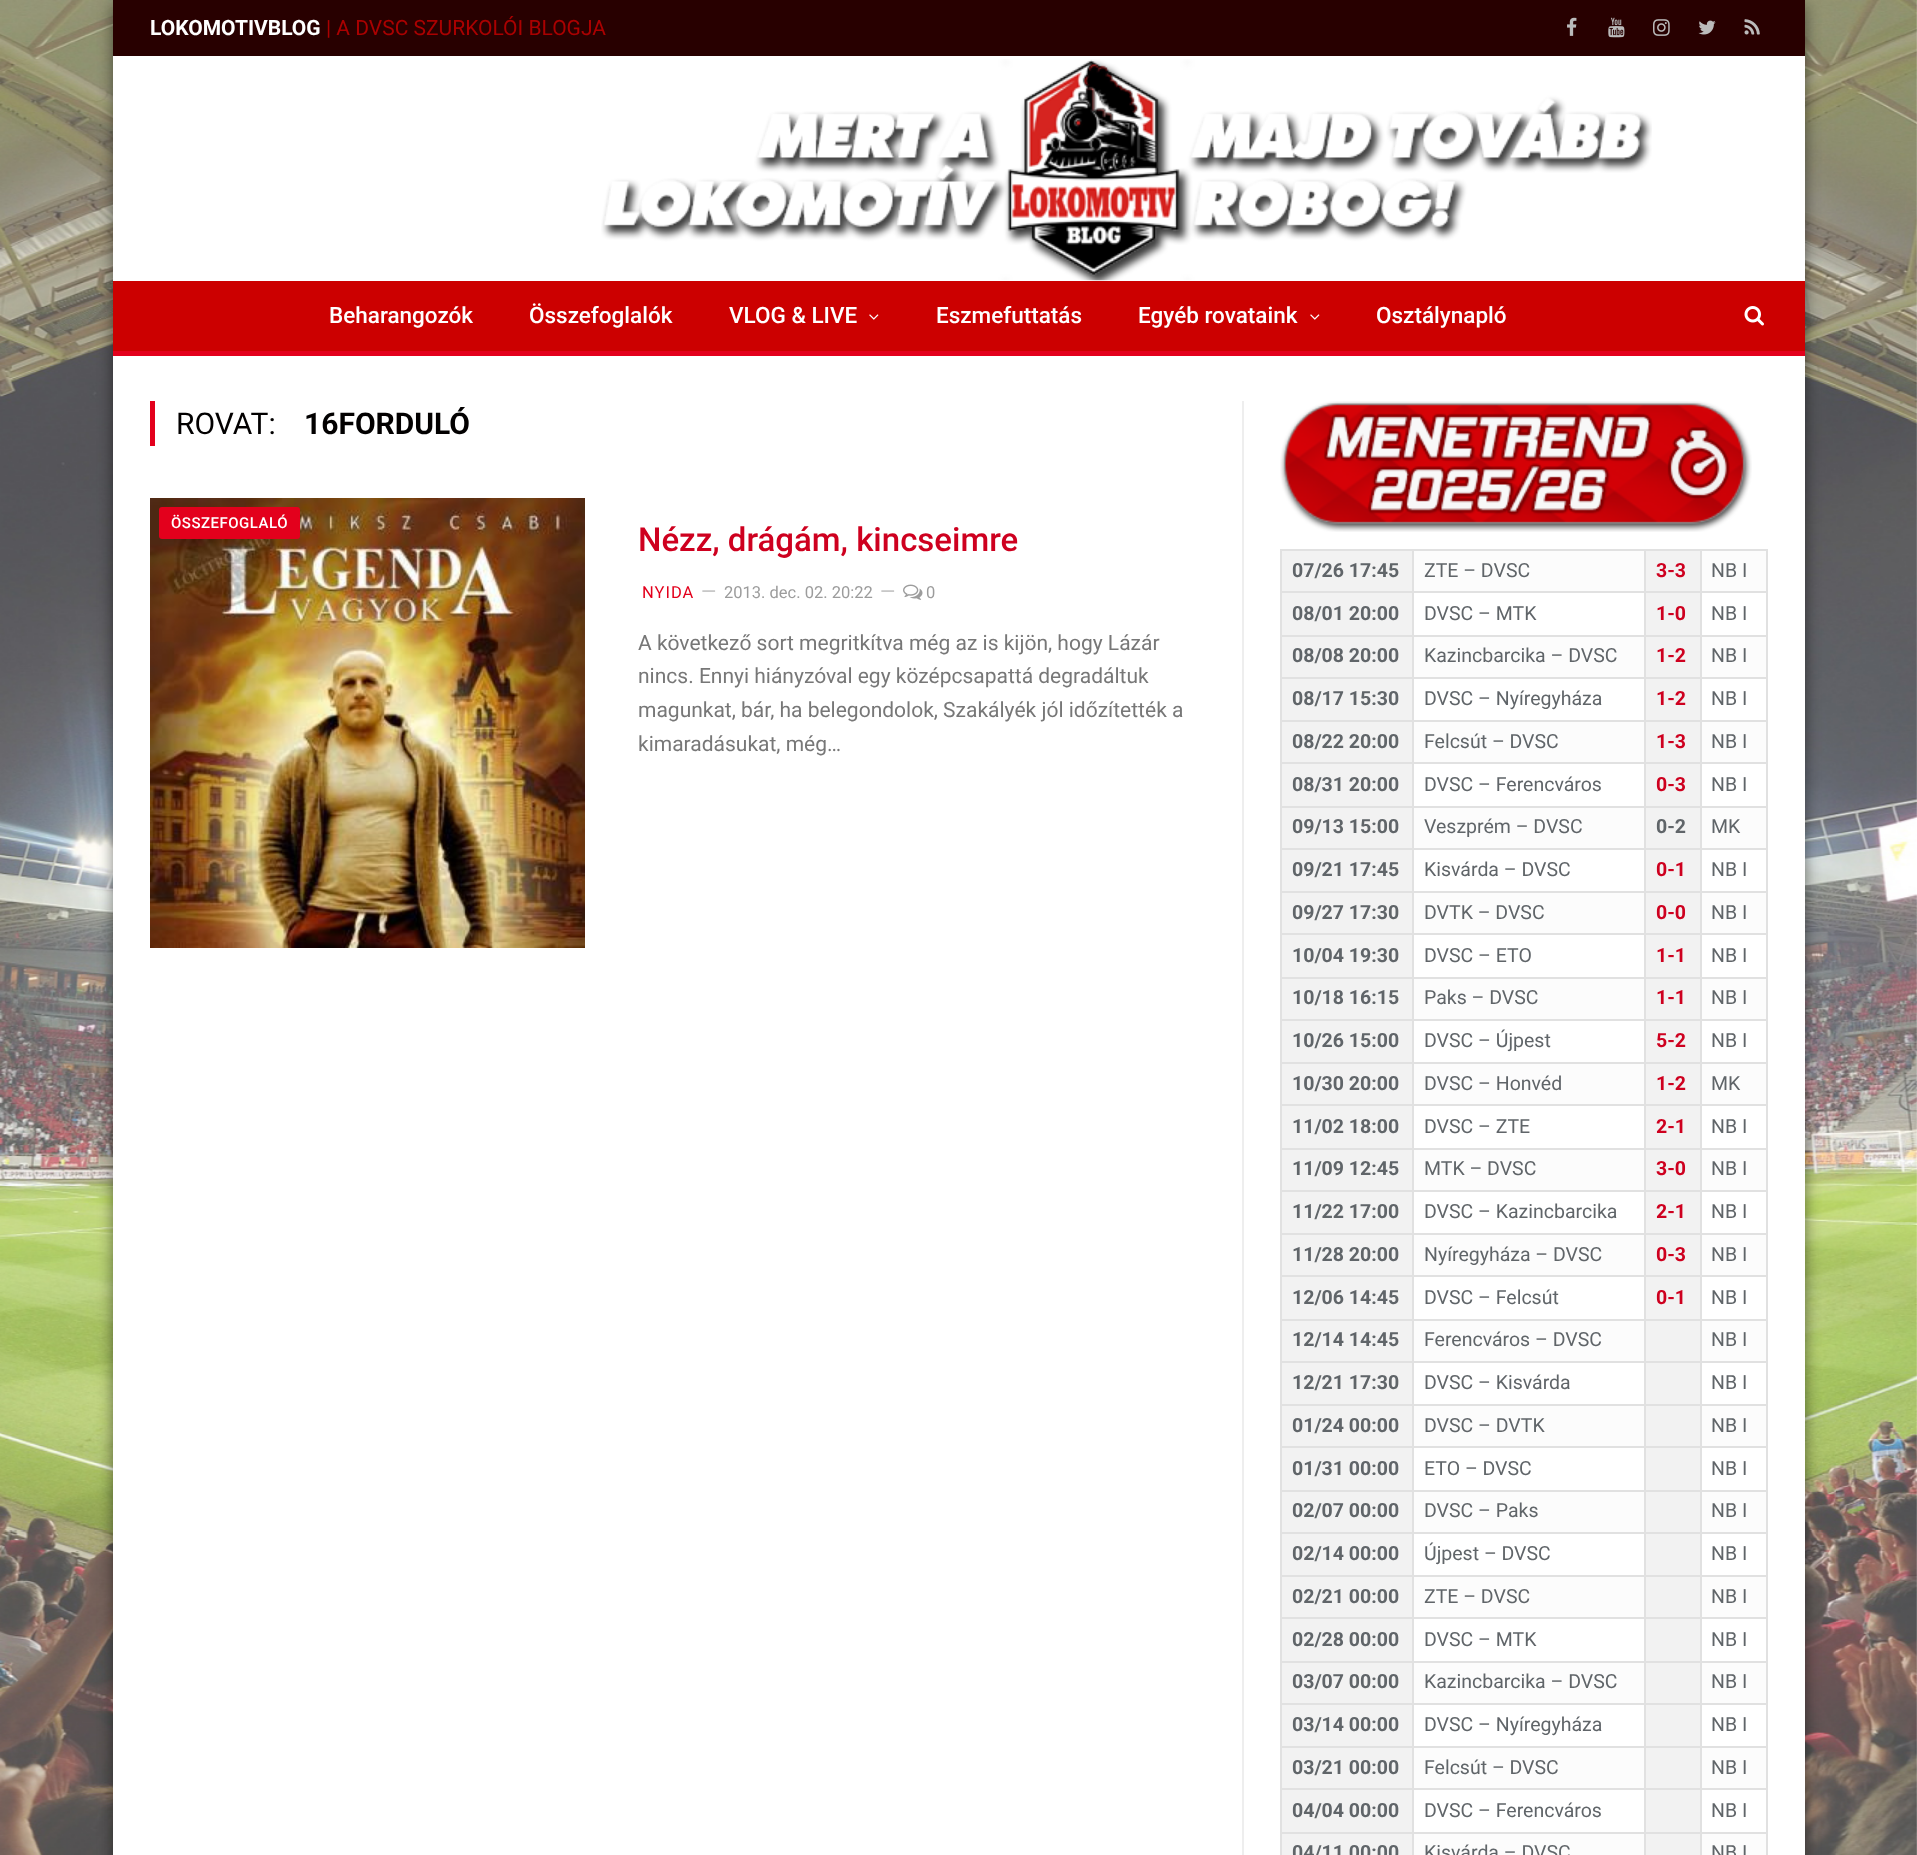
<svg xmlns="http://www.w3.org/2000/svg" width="1917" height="1855">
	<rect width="100%" height="100%" fill="#FFFFFF" />
	<image x="0" y="0" width="1917" height="1855" href="assets/img1.png" />
	<rect x="113" y="5" width="1692" height="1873" fill="#000000" fill-opacity="0.5" filter="blur(7.5px)" />
	<rect x="113" y="56" width="1692" height="1799" fill="#FFFFFF" />
	<rect x="113" y="0" width="1692" height="56" fill="#280000" />
	<text x="150" y="35" font-family="Roboto" font-size="21" font-weight="700" fill="#FFFFFF">LOKOMOTIVBLOG</text>
	<text x="326" y="35" font-family="Roboto" font-size="21" fill="#AA0000">| A DVSC SZURKOLÓI BLOGJA</text>
	<image x="1567" y="17" width="10" height="19" href="assets/img2.png" />
	<image x="1608" y="17" width="17" height="21" href="assets/img3.png" />
	<image x="1653" y="19" width="17" height="17" href="assets/img4.png" />
	<image x="1698" y="20" width="18" height="15" href="assets/img5.png" />
	<image x="1744" y="19" width="16" height="16" href="assets/img6.png" />
	<image x="601" y="59" width="1051" height="222" href="assets/img7.png" />
	<rect x="113" y="281" width="1692" height="70" fill="#CC0000" />
	<rect x="113" y="351" width="1692" height="5" fill="#E3001C" />
	<g font-family="Roboto" font-size="22.5" font-weight="500" fill="#FFFFFF">
		<text x="329" y="323">Beharangozók</text>
		<text x="529" y="323">Összefoglalók</text>
		<text x="729" y="323">VLOG &amp; LIVE</text>
	</g>
	<image x="869" y="314" width="10" height="6" href="assets/img8.png" />
	<g font-family="Roboto" font-size="22.5" font-weight="500" fill="#FFFFFF">
		<text x="936" y="323">Eszmefuttatás</text>
		<text x="1138" y="323">Egyéb rovataink</text>
	</g>
	<image x="1310" y="314" width="10" height="6" href="assets/img8.png" />
	<text x="1376" y="323" font-family="Roboto" font-size="22.5" font-weight="500" fill="#FFFFFF">Osztálynapló</text>
	<image x="1744" y="306" width="20" height="20" href="assets/img9.png" />
	<rect x="150" y="401" width="5" height="45" fill="#E3001C" />
	<text x="176" y="434" font-family="Roboto" font-size="30" fill="#020000">ROVAT:</text>
	<text x="304" y="434" font-family="Roboto" font-size="30" font-weight="700" fill="#020000">16FORDULÓ</text>
	<image x="150" y="498" width="435" height="450" href="assets/img10.png" />
	<rect x="159" y="507" width="141" height="32" rx="3" fill="#E3001C" />
	<text x="171" y="528" font-family="Roboto" font-size="15" font-weight="500" letter-spacing="0.5" fill="#FFFFFF">ÖSSZEFOGLALÓ</text>
	<text x="638" y="551" font-family="Roboto" font-size="33" font-weight="500" fill="#CE001F">Nézz, drágám, kincseimre</text>
	<text x="642" y="598" font-family="Roboto" font-size="16.5" letter-spacing="1" fill="#E3001C">NYIDA</text>
	<text x="701" y="598" font-family="Roboto" font-size="19.5" fill="#BCBCBC">—</text>
	<text x="724" y="598" font-family="Roboto" font-size="16.5" fill="#9C9C9C">2013. dec. 02. 20:22</text>
	<text x="880" y="598" font-family="Roboto" font-size="19.5" fill="#BCBCBC">—</text>
	<image x="903" y="584" width="20" height="16" href="assets/img11.png" />
	<text x="926" y="598" font-family="Roboto" font-size="16.5" fill="#9C9C9C">0</text>
	<g font-family="Roboto" font-size="21" fill="#777777">
		<text x="638" y="650">A következő sort megritkítva még az is kijön, hogy Lázár</text>
		<text x="638" y="683">nincs. Ennyi hiányzóval egy középcsapattá degradáltuk</text>
		<text x="638" y="717">magunkat, bár, ha belegondolok, Szakályék jól időzítették a</text>
		<text x="638" y="751">kimaradásukat, még…</text>
	</g>
	<rect x="1242" y="401" width="2" height="1454" fill="#EEEEEE" />
	<image x="1280" y="401" width="472" height="131" href="assets/img12.png" />
	<rect x="1282" y="551" width="130" height="40" fill="#F2F2F2" />
	<rect x="1700" y="549" width="67" height="2" fill="#E1E1E1" />
	<rect x="1700" y="591" width="67" height="2" fill="#E1E1E1" />
	<rect x="1700" y="635" width="67" height="2" fill="#E1E1E1" />
	<rect x="1700" y="677" width="67" height="2" fill="#E1E1E1" />
	<rect x="1700" y="720" width="67" height="2" fill="#E1E1E1" />
	<rect x="1700" y="762" width="67" height="2" fill="#E1E1E1" />
	<rect x="1700" y="806" width="67" height="2" fill="#E1E1E1" />
	<rect x="1700" y="848" width="67" height="2" fill="#E1E1E1" />
	<rect x="1700" y="891" width="67" height="2" fill="#E1E1E1" />
	<rect x="1700" y="933" width="67" height="2" fill="#E1E1E1" />
	<rect x="1700" y="977" width="67" height="2" fill="#E1E1E1" />
	<rect x="1700" y="1019" width="67" height="2" fill="#E1E1E1" />
	<rect x="1700" y="1062" width="67" height="2" fill="#E1E1E1" />
	<rect x="1700" y="1104" width="67" height="2" fill="#E1E1E1" />
	<rect x="1700" y="1148" width="67" height="2" fill="#E1E1E1" />
	<rect x="1700" y="1190" width="67" height="2" fill="#E1E1E1" />
	<rect x="1700" y="1233" width="67" height="2" fill="#E1E1E1" />
	<rect x="1700" y="1275" width="67" height="2" fill="#E1E1E1" />
	<rect x="1700" y="1319" width="67" height="2" fill="#E1E1E1" />
	<rect x="1700" y="1361" width="67" height="2" fill="#E1E1E1" />
	<rect x="1700" y="1404" width="67" height="2" fill="#E1E1E1" />
	<rect x="1700" y="1446" width="67" height="2" fill="#E1E1E1" />
	<rect x="1700" y="1490" width="67" height="2" fill="#E1E1E1" />
	<rect x="1700" y="1532" width="67" height="2" fill="#E1E1E1" />
	<rect x="1700" y="1575" width="67" height="2" fill="#E1E1E1" />
	<rect x="1700" y="1617" width="67" height="2" fill="#E1E1E1" />
	<rect x="1700" y="1661" width="67" height="2" fill="#E1E1E1" />
	<rect x="1700" y="1703" width="67" height="2" fill="#E1E1E1" />
	<rect x="1700" y="1746" width="67" height="2" fill="#E1E1E1" />
	<rect x="1700" y="1788" width="67" height="2" fill="#E1E1E1" />
	<rect x="1700" y="1832" width="67" height="2" fill="#E1E1E1" />
	<rect x="1700" y="1832" width="2" height="23" fill="#E1E1E1" />
	<rect x="1644" y="1832" width="57" height="2" fill="#E1E1E1" />
	<rect x="1700" y="1788" width="2" height="45" fill="#E1E1E1" />
	<rect x="1644" y="1788" width="57" height="2" fill="#E1E1E1" />
	<rect x="1700" y="1746" width="2" height="44" fill="#E1E1E1" />
	<rect x="1644" y="1746" width="57" height="2" fill="#E1E1E1" />
	<rect x="1700" y="1703" width="2" height="45" fill="#E1E1E1" />
	<rect x="1644" y="1703" width="57" height="2" fill="#E1E1E1" />
	<rect x="1700" y="1661" width="2" height="43" fill="#E1E1E1" />
	<rect x="1644" y="1661" width="57" height="2" fill="#E1E1E1" />
	<rect x="1700" y="1617" width="2" height="45" fill="#E1E1E1" />
	<rect x="1644" y="1617" width="57" height="2" fill="#E1E1E1" />
	<rect x="1700" y="1575" width="2" height="44" fill="#E1E1E1" />
	<rect x="1644" y="1575" width="57" height="2" fill="#E1E1E1" />
	<rect x="1700" y="1532" width="2" height="45" fill="#E1E1E1" />
	<rect x="1644" y="1532" width="57" height="2" fill="#E1E1E1" />
	<rect x="1700" y="1490" width="2" height="43" fill="#E1E1E1" />
	<rect x="1644" y="1490" width="57" height="2" fill="#E1E1E1" />
	<rect x="1700" y="1446" width="2" height="45" fill="#E1E1E1" />
	<rect x="1644" y="1446" width="57" height="2" fill="#E1E1E1" />
	<rect x="1700" y="1404" width="2" height="44" fill="#E1E1E1" />
	<rect x="1644" y="1404" width="57" height="2" fill="#E1E1E1" />
	<rect x="1700" y="1361" width="2" height="45" fill="#E1E1E1" />
	<rect x="1644" y="1361" width="57" height="2" fill="#E1E1E1" />
	<rect x="1700" y="1319" width="2" height="43" fill="#E1E1E1" />
	<rect x="1644" y="1319" width="57" height="2" fill="#E1E1E1" />
	<rect x="1700" y="1275" width="2" height="45" fill="#E1E1E1" />
	<rect x="1644" y="1275" width="57" height="2" fill="#E1E1E1" />
	<rect x="1700" y="1233" width="2" height="44" fill="#E1E1E1" />
	<rect x="1644" y="1233" width="57" height="2" fill="#E1E1E1" />
	<rect x="1700" y="1190" width="2" height="45" fill="#E1E1E1" />
	<rect x="1644" y="1190" width="57" height="2" fill="#E1E1E1" />
	<rect x="1700" y="1148" width="2" height="43" fill="#E1E1E1" />
	<rect x="1644" y="1148" width="57" height="2" fill="#E1E1E1" />
	<rect x="1700" y="1104" width="2" height="45" fill="#E1E1E1" />
	<rect x="1644" y="1104" width="57" height="2" fill="#E1E1E1" />
	<rect x="1700" y="1062" width="2" height="44" fill="#E1E1E1" />
	<rect x="1644" y="1062" width="57" height="2" fill="#E1E1E1" />
	<rect x="1700" y="1019" width="2" height="45" fill="#E1E1E1" />
	<rect x="1644" y="1019" width="57" height="2" fill="#E1E1E1" />
	<rect x="1700" y="977" width="2" height="43" fill="#E1E1E1" />
	<rect x="1644" y="977" width="57" height="2" fill="#E1E1E1" />
	<rect x="1700" y="933" width="2" height="45" fill="#E1E1E1" />
	<rect x="1644" y="933" width="57" height="2" fill="#E1E1E1" />
	<rect x="1700" y="891" width="2" height="44" fill="#E1E1E1" />
	<rect x="1644" y="891" width="57" height="2" fill="#E1E1E1" />
	<rect x="1700" y="848" width="2" height="45" fill="#E1E1E1" />
	<rect x="1644" y="848" width="57" height="2" fill="#E1E1E1" />
	<rect x="1700" y="806" width="2" height="43" fill="#E1E1E1" />
	<rect x="1644" y="806" width="57" height="2" fill="#E1E1E1" />
	<rect x="1700" y="762" width="2" height="45" fill="#E1E1E1" />
	<rect x="1644" y="762" width="57" height="2" fill="#E1E1E1" />
	<rect x="1700" y="720" width="2" height="44" fill="#E1E1E1" />
	<rect x="1644" y="720" width="57" height="2" fill="#E1E1E1" />
	<rect x="1700" y="677" width="2" height="45" fill="#E1E1E1" />
	<rect x="1644" y="677" width="57" height="2" fill="#E1E1E1" />
	<rect x="1700" y="635" width="2" height="43" fill="#E1E1E1" />
	<rect x="1644" y="635" width="57" height="2" fill="#E1E1E1" />
	<rect x="1700" y="591" width="2" height="45" fill="#E1E1E1" />
	<rect x="1644" y="591" width="57" height="2" fill="#E1E1E1" />
	<rect x="1700" y="549" width="2" height="44" fill="#E1E1E1" />
	<rect x="1644" y="549" width="57" height="2" fill="#E1E1E1" />
	<rect x="1644" y="1832" width="2" height="23" fill="#E1E1E1" />
	<rect x="1412" y="1832" width="234" height="2" fill="#E1E1E1" />
	<rect x="1644" y="1788" width="2" height="45" fill="#E1E1E1" />
	<rect x="1412" y="1788" width="234" height="2" fill="#E1E1E1" />
	<rect x="1644" y="1746" width="2" height="44" fill="#E1E1E1" />
	<rect x="1412" y="1746" width="234" height="2" fill="#E1E1E1" />
	<rect x="1644" y="1703" width="2" height="45" fill="#E1E1E1" />
	<rect x="1412" y="1703" width="234" height="2" fill="#E1E1E1" />
	<rect x="1644" y="1661" width="2" height="43" fill="#E1E1E1" />
	<rect x="1412" y="1661" width="234" height="2" fill="#E1E1E1" />
	<rect x="1644" y="1617" width="2" height="45" fill="#E1E1E1" />
	<rect x="1412" y="1617" width="234" height="2" fill="#E1E1E1" />
	<rect x="1644" y="1575" width="2" height="44" fill="#E1E1E1" />
	<rect x="1412" y="1575" width="234" height="2" fill="#E1E1E1" />
	<rect x="1644" y="1532" width="2" height="45" fill="#E1E1E1" />
	<rect x="1412" y="1532" width="234" height="2" fill="#E1E1E1" />
	<rect x="1644" y="1490" width="2" height="43" fill="#E1E1E1" />
	<rect x="1412" y="1490" width="234" height="2" fill="#E1E1E1" />
	<rect x="1644" y="1446" width="2" height="45" fill="#E1E1E1" />
	<rect x="1412" y="1446" width="234" height="2" fill="#E1E1E1" />
	<rect x="1644" y="1404" width="2" height="44" fill="#E1E1E1" />
	<rect x="1412" y="1404" width="234" height="2" fill="#E1E1E1" />
	<rect x="1644" y="1361" width="2" height="45" fill="#E1E1E1" />
	<rect x="1412" y="1361" width="234" height="2" fill="#E1E1E1" />
	<rect x="1644" y="1319" width="2" height="43" fill="#E1E1E1" />
	<rect x="1412" y="1319" width="234" height="2" fill="#E1E1E1" />
	<rect x="1644" y="1275" width="2" height="45" fill="#E1E1E1" />
	<rect x="1412" y="1275" width="234" height="2" fill="#E1E1E1" />
	<rect x="1644" y="1233" width="2" height="44" fill="#E1E1E1" />
	<rect x="1412" y="1233" width="234" height="2" fill="#E1E1E1" />
	<rect x="1644" y="1190" width="2" height="45" fill="#E1E1E1" />
	<rect x="1412" y="1190" width="234" height="2" fill="#E1E1E1" />
	<rect x="1644" y="1148" width="2" height="43" fill="#E1E1E1" />
	<rect x="1412" y="1148" width="234" height="2" fill="#E1E1E1" />
	<rect x="1644" y="1104" width="2" height="45" fill="#E1E1E1" />
	<rect x="1412" y="1104" width="234" height="2" fill="#E1E1E1" />
	<rect x="1644" y="1062" width="2" height="44" fill="#E1E1E1" />
	<rect x="1412" y="1062" width="234" height="2" fill="#E1E1E1" />
	<rect x="1644" y="1019" width="2" height="45" fill="#E1E1E1" />
	<rect x="1412" y="1019" width="234" height="2" fill="#E1E1E1" />
	<rect x="1644" y="977" width="2" height="43" fill="#E1E1E1" />
	<rect x="1412" y="977" width="234" height="2" fill="#E1E1E1" />
	<rect x="1644" y="933" width="2" height="45" fill="#E1E1E1" />
	<rect x="1412" y="933" width="234" height="2" fill="#E1E1E1" />
	<rect x="1644" y="891" width="2" height="44" fill="#E1E1E1" />
	<rect x="1412" y="891" width="234" height="2" fill="#E1E1E1" />
	<rect x="1644" y="848" width="2" height="45" fill="#E1E1E1" />
	<rect x="1412" y="848" width="234" height="2" fill="#E1E1E1" />
	<rect x="1644" y="806" width="2" height="43" fill="#E1E1E1" />
	<rect x="1412" y="806" width="234" height="2" fill="#E1E1E1" />
	<rect x="1644" y="762" width="2" height="45" fill="#E1E1E1" />
	<rect x="1412" y="762" width="234" height="2" fill="#E1E1E1" />
	<rect x="1644" y="720" width="2" height="44" fill="#E1E1E1" />
	<rect x="1412" y="720" width="234" height="2" fill="#E1E1E1" />
	<rect x="1644" y="677" width="2" height="45" fill="#E1E1E1" />
	<rect x="1412" y="677" width="234" height="2" fill="#E1E1E1" />
	<rect x="1644" y="635" width="2" height="43" fill="#E1E1E1" />
	<rect x="1412" y="635" width="234" height="2" fill="#E1E1E1" />
	<rect x="1644" y="591" width="2" height="45" fill="#E1E1E1" />
	<rect x="1412" y="591" width="234" height="2" fill="#E1E1E1" />
	<rect x="1644" y="549" width="2" height="44" fill="#E1E1E1" />
	<rect x="1412" y="549" width="234" height="2" fill="#E1E1E1" />
	<rect x="1412" y="1832" width="2" height="23" fill="#E1E1E1" />
	<rect x="1280" y="1832" width="133" height="2" fill="#E1E1E1" />
	<rect x="1412" y="1788" width="2" height="45" fill="#E1E1E1" />
	<rect x="1280" y="1788" width="133" height="2" fill="#E1E1E1" />
	<rect x="1412" y="1746" width="2" height="44" fill="#E1E1E1" />
	<rect x="1280" y="1746" width="133" height="2" fill="#E1E1E1" />
	<rect x="1412" y="1703" width="2" height="45" fill="#E1E1E1" />
	<rect x="1280" y="1703" width="133" height="2" fill="#E1E1E1" />
	<rect x="1412" y="1661" width="2" height="43" fill="#E1E1E1" />
	<rect x="1280" y="1661" width="133" height="2" fill="#E1E1E1" />
	<rect x="1412" y="1617" width="2" height="45" fill="#E1E1E1" />
	<rect x="1280" y="1617" width="133" height="2" fill="#E1E1E1" />
	<rect x="1412" y="1575" width="2" height="44" fill="#E1E1E1" />
	<rect x="1280" y="1575" width="133" height="2" fill="#E1E1E1" />
	<rect x="1412" y="1532" width="2" height="45" fill="#E1E1E1" />
	<rect x="1280" y="1532" width="133" height="2" fill="#E1E1E1" />
	<rect x="1412" y="1490" width="2" height="43" fill="#E1E1E1" />
	<rect x="1280" y="1490" width="133" height="2" fill="#E1E1E1" />
	<rect x="1412" y="1446" width="2" height="45" fill="#E1E1E1" />
	<rect x="1280" y="1446" width="133" height="2" fill="#E1E1E1" />
	<rect x="1412" y="1404" width="2" height="44" fill="#E1E1E1" />
	<rect x="1280" y="1404" width="133" height="2" fill="#E1E1E1" />
	<rect x="1412" y="1361" width="2" height="45" fill="#E1E1E1" />
	<rect x="1280" y="1361" width="133" height="2" fill="#E1E1E1" />
	<rect x="1412" y="1319" width="2" height="43" fill="#E1E1E1" />
	<rect x="1280" y="1319" width="133" height="2" fill="#E1E1E1" />
	<rect x="1412" y="1275" width="2" height="45" fill="#E1E1E1" />
	<rect x="1280" y="1275" width="133" height="2" fill="#E1E1E1" />
	<rect x="1412" y="1233" width="2" height="44" fill="#E1E1E1" />
	<rect x="1280" y="1233" width="133" height="2" fill="#E1E1E1" />
	<rect x="1412" y="1190" width="2" height="45" fill="#E1E1E1" />
	<rect x="1280" y="1190" width="133" height="2" fill="#E1E1E1" />
	<rect x="1412" y="1148" width="2" height="43" fill="#E1E1E1" />
	<rect x="1280" y="1148" width="133" height="2" fill="#E1E1E1" />
	<rect x="1412" y="1104" width="2" height="45" fill="#E1E1E1" />
	<rect x="1280" y="1104" width="133" height="2" fill="#E1E1E1" />
	<rect x="1412" y="1062" width="2" height="44" fill="#E1E1E1" />
	<rect x="1280" y="1062" width="133" height="2" fill="#E1E1E1" />
	<rect x="1412" y="1019" width="2" height="45" fill="#E1E1E1" />
	<rect x="1280" y="1019" width="133" height="2" fill="#E1E1E1" />
	<rect x="1412" y="977" width="2" height="43" fill="#E1E1E1" />
	<rect x="1280" y="977" width="133" height="2" fill="#E1E1E1" />
	<rect x="1412" y="933" width="2" height="45" fill="#E1E1E1" />
	<rect x="1280" y="933" width="133" height="2" fill="#E1E1E1" />
	<rect x="1412" y="891" width="2" height="44" fill="#E1E1E1" />
	<rect x="1280" y="891" width="133" height="2" fill="#E1E1E1" />
	<rect x="1412" y="848" width="2" height="45" fill="#E1E1E1" />
	<rect x="1280" y="848" width="133" height="2" fill="#E1E1E1" />
	<rect x="1412" y="806" width="2" height="43" fill="#E1E1E1" />
	<rect x="1280" y="806" width="133" height="2" fill="#E1E1E1" />
	<rect x="1412" y="762" width="2" height="45" fill="#E1E1E1" />
	<rect x="1280" y="762" width="133" height="2" fill="#E1E1E1" />
	<rect x="1412" y="720" width="2" height="44" fill="#E1E1E1" />
	<rect x="1280" y="720" width="133" height="2" fill="#E1E1E1" />
	<rect x="1412" y="677" width="2" height="45" fill="#E1E1E1" />
	<rect x="1280" y="677" width="133" height="2" fill="#E1E1E1" />
	<rect x="1412" y="635" width="2" height="43" fill="#E1E1E1" />
	<rect x="1280" y="635" width="133" height="2" fill="#E1E1E1" />
	<rect x="1412" y="591" width="2" height="45" fill="#E1E1E1" />
	<rect x="1280" y="591" width="133" height="2" fill="#E1E1E1" />
	<rect x="1412" y="549" width="2" height="44" fill="#E1E1E1" />
	<rect x="1280" y="549" width="133" height="2" fill="#E1E1E1" />
	<rect x="1280" y="1832" width="2" height="23" fill="#E1E1E1" />
	<rect x="1280" y="1788" width="2" height="45" fill="#E1E1E1" />
	<rect x="1280" y="1746" width="2" height="44" fill="#E1E1E1" />
	<rect x="1280" y="1703" width="2" height="45" fill="#E1E1E1" />
	<rect x="1280" y="1661" width="2" height="43" fill="#E1E1E1" />
	<rect x="1280" y="1617" width="2" height="45" fill="#E1E1E1" />
	<rect x="1280" y="1575" width="2" height="44" fill="#E1E1E1" />
	<rect x="1280" y="1532" width="2" height="45" fill="#E1E1E1" />
	<rect x="1280" y="1490" width="2" height="43" fill="#E1E1E1" />
	<rect x="1280" y="1446" width="2" height="45" fill="#E1E1E1" />
	<rect x="1280" y="1404" width="2" height="44" fill="#E1E1E1" />
	<rect x="1280" y="1361" width="2" height="45" fill="#E1E1E1" />
	<rect x="1280" y="1319" width="2" height="43" fill="#E1E1E1" />
	<rect x="1280" y="1275" width="2" height="45" fill="#E1E1E1" />
	<rect x="1280" y="1233" width="2" height="44" fill="#E1E1E1" />
	<rect x="1280" y="1190" width="2" height="45" fill="#E1E1E1" />
	<rect x="1280" y="1148" width="2" height="43" fill="#E1E1E1" />
	<rect x="1280" y="1104" width="2" height="45" fill="#E1E1E1" />
	<rect x="1280" y="1062" width="2" height="44" fill="#E1E1E1" />
	<rect x="1280" y="1019" width="2" height="45" fill="#E1E1E1" />
	<rect x="1280" y="977" width="2" height="43" fill="#E1E1E1" />
	<rect x="1280" y="933" width="2" height="45" fill="#E1E1E1" />
	<rect x="1280" y="891" width="2" height="44" fill="#E1E1E1" />
	<rect x="1280" y="848" width="2" height="45" fill="#E1E1E1" />
	<rect x="1280" y="806" width="2" height="43" fill="#E1E1E1" />
	<rect x="1280" y="762" width="2" height="45" fill="#E1E1E1" />
	<rect x="1280" y="720" width="2" height="44" fill="#E1E1E1" />
	<rect x="1280" y="677" width="2" height="45" fill="#E1E1E1" />
	<rect x="1280" y="635" width="2" height="43" fill="#E1E1E1" />
	<rect x="1280" y="591" width="2" height="45" fill="#E1E1E1" />
	<rect x="1280" y="549" width="2" height="44" fill="#E1E1E1" />
	<text x="1292" y="577" font-family="Roboto" font-size="19.5" font-weight="700" fill="#606569">07/26 17:45</text>
	<rect x="1414" y="551" width="230" height="40" fill="#FCFCFC" />
	<text x="1424" y="577" font-family="Roboto" font-size="19.5" fill="#606569">ZTE – DVSC</text>
	<rect x="1646" y="551" width="54" height="40" fill="#F2F2F2" />
	<text x="1656" y="577" font-family="Roboto" font-size="19.5" font-weight="700" fill="#CE001F">3-3</text>
	<rect x="1702" y="551" width="64" height="40" fill="#FCFCFC" />
	<rect x="1766" y="1832" width="2" height="23" fill="#E1E1E1" />
	<rect x="1766" y="1788" width="2" height="45" fill="#E1E1E1" />
	<rect x="1766" y="1746" width="2" height="44" fill="#E1E1E1" />
	<rect x="1766" y="1703" width="2" height="45" fill="#E1E1E1" />
	<rect x="1766" y="1661" width="2" height="43" fill="#E1E1E1" />
	<rect x="1766" y="1617" width="2" height="45" fill="#E1E1E1" />
	<rect x="1766" y="1575" width="2" height="44" fill="#E1E1E1" />
	<rect x="1766" y="1532" width="2" height="45" fill="#E1E1E1" />
	<rect x="1766" y="1490" width="2" height="43" fill="#E1E1E1" />
	<rect x="1766" y="1446" width="2" height="45" fill="#E1E1E1" />
	<rect x="1766" y="1404" width="2" height="44" fill="#E1E1E1" />
	<rect x="1766" y="1361" width="2" height="45" fill="#E1E1E1" />
	<rect x="1766" y="1319" width="2" height="43" fill="#E1E1E1" />
	<rect x="1766" y="1275" width="2" height="45" fill="#E1E1E1" />
	<rect x="1766" y="1233" width="2" height="44" fill="#E1E1E1" />
	<rect x="1766" y="1190" width="2" height="45" fill="#E1E1E1" />
	<rect x="1766" y="1148" width="2" height="43" fill="#E1E1E1" />
	<rect x="1766" y="1104" width="2" height="45" fill="#E1E1E1" />
	<rect x="1766" y="1062" width="2" height="44" fill="#E1E1E1" />
	<rect x="1766" y="1019" width="2" height="45" fill="#E1E1E1" />
	<rect x="1766" y="977" width="2" height="43" fill="#E1E1E1" />
	<rect x="1766" y="933" width="2" height="45" fill="#E1E1E1" />
	<rect x="1766" y="891" width="2" height="44" fill="#E1E1E1" />
	<rect x="1766" y="848" width="2" height="45" fill="#E1E1E1" />
	<rect x="1766" y="806" width="2" height="43" fill="#E1E1E1" />
	<rect x="1766" y="762" width="2" height="45" fill="#E1E1E1" />
	<rect x="1766" y="720" width="2" height="44" fill="#E1E1E1" />
	<rect x="1766" y="677" width="2" height="45" fill="#E1E1E1" />
	<rect x="1766" y="635" width="2" height="43" fill="#E1E1E1" />
	<rect x="1766" y="591" width="2" height="45" fill="#E1E1E1" />
	<rect x="1766" y="549" width="2" height="44" fill="#E1E1E1" />
	<text x="1711" y="577" font-family="Roboto" font-size="19.5" fill="#606569">NB I</text>
	<rect x="1282" y="593" width="130" height="42" fill="#F2F2F2" />
	<text x="1292" y="620" font-family="Roboto" font-size="19.5" font-weight="700" fill="#606569">08/01 20:00</text>
	<text x="1424" y="620" font-family="Roboto" font-size="19.5" fill="#606569">DVSC – MTK</text>
	<rect x="1646" y="593" width="54" height="42" fill="#F2F2F2" />
	<text x="1656" y="620" font-family="Roboto" font-size="19.5" font-weight="700" fill="#CE001F">1-0</text>
	<text x="1711" y="620" font-family="Roboto" font-size="19.5" fill="#606569">NB I</text>
	<rect x="1282" y="637" width="130" height="40" fill="#F2F2F2" />
	<text x="1292" y="662" font-family="Roboto" font-size="19.5" font-weight="700" fill="#606569">08/08 20:00</text>
	<rect x="1414" y="637" width="230" height="40" fill="#FCFCFC" />
	<text x="1424" y="662" font-family="Roboto" font-size="19.5" fill="#606569">Kazincbarcika – DVSC</text>
	<rect x="1646" y="637" width="54" height="40" fill="#F2F2F2" />
	<text x="1656" y="662" font-family="Roboto" font-size="19.5" font-weight="700" fill="#CE001F">1-2</text>
	<rect x="1702" y="637" width="64" height="40" fill="#FCFCFC" />
	<text x="1711" y="662" font-family="Roboto" font-size="19.5" fill="#606569">NB I</text>
	<rect x="1282" y="679" width="130" height="41" fill="#F2F2F2" />
	<text x="1292" y="705" font-family="Roboto" font-size="19.5" font-weight="700" fill="#606569">08/17 15:30</text>
	<text x="1424" y="705" font-family="Roboto" font-size="19.5" fill="#606569">DVSC – Nyíregyháza</text>
	<rect x="1646" y="679" width="54" height="41" fill="#F2F2F2" />
	<text x="1656" y="705" font-family="Roboto" font-size="19.5" font-weight="700" fill="#CE001F">1-2</text>
	<text x="1711" y="705" font-family="Roboto" font-size="19.5" fill="#606569">NB I</text>
	<rect x="1282" y="722" width="130" height="40" fill="#F2F2F2" />
	<text x="1292" y="748" font-family="Roboto" font-size="19.5" font-weight="700" fill="#606569">08/22 20:00</text>
	<rect x="1414" y="722" width="230" height="40" fill="#FCFCFC" />
	<text x="1424" y="748" font-family="Roboto" font-size="19.5" fill="#606569">Felcsút – DVSC</text>
	<rect x="1646" y="722" width="54" height="40" fill="#F2F2F2" />
	<text x="1656" y="748" font-family="Roboto" font-size="19.5" font-weight="700" fill="#CE001F">1-3</text>
	<rect x="1702" y="722" width="64" height="40" fill="#FCFCFC" />
	<text x="1711" y="748" font-family="Roboto" font-size="19.5" fill="#606569">NB I</text>
	<rect x="1282" y="764" width="130" height="42" fill="#F2F2F2" />
	<text x="1292" y="791" font-family="Roboto" font-size="19.5" font-weight="700" fill="#606569">08/31 20:00</text>
	<text x="1424" y="791" font-family="Roboto" font-size="19.5" fill="#606569">DVSC – Ferencváros</text>
	<rect x="1646" y="764" width="54" height="42" fill="#F2F2F2" />
	<text x="1656" y="791" font-family="Roboto" font-size="19.5" font-weight="700" fill="#CE001F">0-3</text>
	<text x="1711" y="791" font-family="Roboto" font-size="19.5" fill="#606569">NB I</text>
	<rect x="1282" y="808" width="130" height="40" fill="#F2F2F2" />
	<text x="1292" y="833" font-family="Roboto" font-size="19.5" font-weight="700" fill="#606569">09/13 15:00</text>
	<rect x="1414" y="808" width="230" height="40" fill="#FCFCFC" />
	<text x="1424" y="833" font-family="Roboto" font-size="19.5" fill="#606569">Veszprém – DVSC</text>
	<rect x="1646" y="808" width="54" height="40" fill="#F2F2F2" />
	<text x="1656" y="833" font-family="Roboto" font-size="19.5" font-weight="700" fill="#606569">0-2</text>
	<rect x="1702" y="808" width="64" height="40" fill="#FCFCFC" />
	<text x="1711" y="833" font-family="Roboto" font-size="19.5" fill="#606569">MK</text>
	<rect x="1282" y="850" width="130" height="41" fill="#F2F2F2" />
	<text x="1292" y="876" font-family="Roboto" font-size="19.5" font-weight="700" fill="#606569">09/21 17:45</text>
	<text x="1424" y="876" font-family="Roboto" font-size="19.5" fill="#606569">Kisvárda – DVSC</text>
	<rect x="1646" y="850" width="54" height="41" fill="#F2F2F2" />
	<text x="1656" y="876" font-family="Roboto" font-size="19.5" font-weight="700" fill="#CE001F">0-1</text>
	<text x="1711" y="876" font-family="Roboto" font-size="19.5" fill="#606569">NB I</text>
	<rect x="1282" y="893" width="130" height="40" fill="#F2F2F2" />
	<text x="1292" y="919" font-family="Roboto" font-size="19.5" font-weight="700" fill="#606569">09/27 17:30</text>
	<rect x="1414" y="893" width="230" height="40" fill="#FCFCFC" />
	<text x="1424" y="919" font-family="Roboto" font-size="19.5" fill="#606569">DVTK – DVSC</text>
	<rect x="1646" y="893" width="54" height="40" fill="#F2F2F2" />
	<text x="1656" y="919" font-family="Roboto" font-size="19.5" font-weight="700" fill="#CE001F">0-0</text>
	<rect x="1702" y="893" width="64" height="40" fill="#FCFCFC" />
	<text x="1711" y="919" font-family="Roboto" font-size="19.5" fill="#606569">NB I</text>
	<rect x="1282" y="935" width="130" height="42" fill="#F2F2F2" />
	<text x="1292" y="962" font-family="Roboto" font-size="19.5" font-weight="700" fill="#606569">10/04 19:30</text>
	<text x="1424" y="962" font-family="Roboto" font-size="19.5" fill="#606569">DVSC – ETO</text>
	<rect x="1646" y="935" width="54" height="42" fill="#F2F2F2" />
	<text x="1656" y="962" font-family="Roboto" font-size="19.5" font-weight="700" fill="#CE001F">1-1</text>
	<text x="1711" y="962" font-family="Roboto" font-size="19.5" fill="#606569">NB I</text>
	<rect x="1282" y="979" width="130" height="40" fill="#F2F2F2" />
	<text x="1292" y="1004" font-family="Roboto" font-size="19.5" font-weight="700" fill="#606569">10/18 16:15</text>
	<rect x="1414" y="979" width="230" height="40" fill="#FCFCFC" />
	<text x="1424" y="1004" font-family="Roboto" font-size="19.5" fill="#606569">Paks – DVSC</text>
	<rect x="1646" y="979" width="54" height="40" fill="#F2F2F2" />
	<text x="1656" y="1004" font-family="Roboto" font-size="19.5" font-weight="700" fill="#CE001F">1-1</text>
	<rect x="1702" y="979" width="64" height="40" fill="#FCFCFC" />
	<text x="1711" y="1004" font-family="Roboto" font-size="19.5" fill="#606569">NB I</text>
	<rect x="1282" y="1021" width="130" height="41" fill="#F2F2F2" />
	<text x="1292" y="1047" font-family="Roboto" font-size="19.5" font-weight="700" fill="#606569">10/26 15:00</text>
	<text x="1424" y="1047" font-family="Roboto" font-size="19.5" fill="#606569">DVSC – Újpest</text>
	<rect x="1646" y="1021" width="54" height="41" fill="#F2F2F2" />
	<text x="1656" y="1047" font-family="Roboto" font-size="19.5" font-weight="700" fill="#CE001F">5-2</text>
	<text x="1711" y="1047" font-family="Roboto" font-size="19.5" fill="#606569">NB I</text>
	<rect x="1282" y="1064" width="130" height="40" fill="#F2F2F2" />
	<text x="1292" y="1090" font-family="Roboto" font-size="19.5" font-weight="700" fill="#606569">10/30 20:00</text>
	<rect x="1414" y="1064" width="230" height="40" fill="#FCFCFC" />
	<text x="1424" y="1090" font-family="Roboto" font-size="19.5" fill="#606569">DVSC – Honvéd</text>
	<rect x="1646" y="1064" width="54" height="40" fill="#F2F2F2" />
	<text x="1656" y="1090" font-family="Roboto" font-size="19.5" font-weight="700" fill="#CE001F">1-2</text>
	<rect x="1702" y="1064" width="64" height="40" fill="#FCFCFC" />
	<text x="1711" y="1090" font-family="Roboto" font-size="19.5" fill="#606569">MK</text>
	<rect x="1282" y="1106" width="130" height="42" fill="#F2F2F2" />
	<text x="1292" y="1133" font-family="Roboto" font-size="19.5" font-weight="700" fill="#606569">11/02 18:00</text>
	<text x="1424" y="1133" font-family="Roboto" font-size="19.5" fill="#606569">DVSC – ZTE</text>
	<rect x="1646" y="1106" width="54" height="42" fill="#F2F2F2" />
	<text x="1656" y="1133" font-family="Roboto" font-size="19.5" font-weight="700" fill="#CE001F">2-1</text>
	<text x="1711" y="1133" font-family="Roboto" font-size="19.5" fill="#606569">NB I</text>
	<rect x="1282" y="1150" width="130" height="40" fill="#F2F2F2" />
	<text x="1292" y="1175" font-family="Roboto" font-size="19.5" font-weight="700" fill="#606569">11/09 12:45</text>
	<rect x="1414" y="1150" width="230" height="40" fill="#FCFCFC" />
	<text x="1424" y="1175" font-family="Roboto" font-size="19.5" fill="#606569">MTK – DVSC</text>
	<rect x="1646" y="1150" width="54" height="40" fill="#F2F2F2" />
	<text x="1656" y="1175" font-family="Roboto" font-size="19.5" font-weight="700" fill="#CE001F">3-0</text>
	<rect x="1702" y="1150" width="64" height="40" fill="#FCFCFC" />
	<text x="1711" y="1175" font-family="Roboto" font-size="19.5" fill="#606569">NB I</text>
	<rect x="1282" y="1192" width="130" height="41" fill="#F2F2F2" />
	<text x="1292" y="1218" font-family="Roboto" font-size="19.5" font-weight="700" fill="#606569">11/22 17:00</text>
	<text x="1424" y="1218" font-family="Roboto" font-size="19.5" fill="#606569">DVSC – Kazincbarcika</text>
	<rect x="1646" y="1192" width="54" height="41" fill="#F2F2F2" />
	<text x="1656" y="1218" font-family="Roboto" font-size="19.5" font-weight="700" fill="#CE001F">2-1</text>
	<text x="1711" y="1218" font-family="Roboto" font-size="19.5" fill="#606569">NB I</text>
	<rect x="1282" y="1235" width="130" height="40" fill="#F2F2F2" />
	<text x="1292" y="1261" font-family="Roboto" font-size="19.5" font-weight="700" fill="#606569">11/28 20:00</text>
	<rect x="1414" y="1235" width="230" height="40" fill="#FCFCFC" />
	<text x="1424" y="1261" font-family="Roboto" font-size="19.5" fill="#606569">Nyíregyháza – DVSC</text>
	<rect x="1646" y="1235" width="54" height="40" fill="#F2F2F2" />
	<text x="1656" y="1261" font-family="Roboto" font-size="19.5" font-weight="700" fill="#CE001F">0-3</text>
	<rect x="1702" y="1235" width="64" height="40" fill="#FCFCFC" />
	<text x="1711" y="1261" font-family="Roboto" font-size="19.5" fill="#606569">NB I</text>
	<rect x="1282" y="1277" width="130" height="42" fill="#F2F2F2" />
	<text x="1292" y="1304" font-family="Roboto" font-size="19.5" font-weight="700" fill="#606569">12/06 14:45</text>
	<text x="1424" y="1304" font-family="Roboto" font-size="19.5" fill="#606569">DVSC – Felcsút</text>
	<rect x="1646" y="1277" width="54" height="42" fill="#F2F2F2" />
	<text x="1656" y="1304" font-family="Roboto" font-size="19.5" font-weight="700" fill="#CE001F">0-1</text>
	<text x="1711" y="1304" font-family="Roboto" font-size="19.5" fill="#606569">NB I</text>
	<rect x="1282" y="1321" width="130" height="40" fill="#F2F2F2" />
	<text x="1292" y="1346" font-family="Roboto" font-size="19.5" font-weight="700" fill="#606569">12/14 14:45</text>
	<rect x="1414" y="1321" width="230" height="40" fill="#FCFCFC" />
	<text x="1424" y="1346" font-family="Roboto" font-size="19.5" fill="#606569">Ferencváros – DVSC</text>
	<rect x="1646" y="1321" width="54" height="40" fill="#F2F2F2" />
	<rect x="1702" y="1321" width="64" height="40" fill="#FCFCFC" />
	<text x="1711" y="1346" font-family="Roboto" font-size="19.5" fill="#606569">NB I</text>
	<rect x="1282" y="1363" width="130" height="41" fill="#F2F2F2" />
	<text x="1292" y="1389" font-family="Roboto" font-size="19.5" font-weight="700" fill="#606569">12/21 17:30</text>
	<text x="1424" y="1389" font-family="Roboto" font-size="19.5" fill="#606569">DVSC – Kisvárda</text>
	<rect x="1646" y="1363" width="54" height="41" fill="#F2F2F2" />
	<text x="1711" y="1389" font-family="Roboto" font-size="19.5" fill="#606569">NB I</text>
	<rect x="1282" y="1406" width="130" height="40" fill="#F2F2F2" />
	<text x="1292" y="1432" font-family="Roboto" font-size="19.5" font-weight="700" fill="#606569">01/24 00:00</text>
	<rect x="1414" y="1406" width="230" height="40" fill="#FCFCFC" />
	<text x="1424" y="1432" font-family="Roboto" font-size="19.5" fill="#606569">DVSC – DVTK</text>
	<rect x="1646" y="1406" width="54" height="40" fill="#F2F2F2" />
	<rect x="1702" y="1406" width="64" height="40" fill="#FCFCFC" />
	<text x="1711" y="1432" font-family="Roboto" font-size="19.5" fill="#606569">NB I</text>
	<rect x="1282" y="1448" width="130" height="42" fill="#F2F2F2" />
	<text x="1292" y="1475" font-family="Roboto" font-size="19.5" font-weight="700" fill="#606569">01/31 00:00</text>
	<text x="1424" y="1475" font-family="Roboto" font-size="19.5" fill="#606569">ETO – DVSC</text>
	<rect x="1646" y="1448" width="54" height="42" fill="#F2F2F2" />
	<text x="1711" y="1475" font-family="Roboto" font-size="19.5" fill="#606569">NB I</text>
	<rect x="1282" y="1492" width="130" height="40" fill="#F2F2F2" />
	<text x="1292" y="1517" font-family="Roboto" font-size="19.5" font-weight="700" fill="#606569">02/07 00:00</text>
	<rect x="1414" y="1492" width="230" height="40" fill="#FCFCFC" />
	<text x="1424" y="1517" font-family="Roboto" font-size="19.5" fill="#606569">DVSC – Paks</text>
	<rect x="1646" y="1492" width="54" height="40" fill="#F2F2F2" />
	<rect x="1702" y="1492" width="64" height="40" fill="#FCFCFC" />
	<text x="1711" y="1517" font-family="Roboto" font-size="19.5" fill="#606569">NB I</text>
	<rect x="1282" y="1534" width="130" height="41" fill="#F2F2F2" />
	<text x="1292" y="1560" font-family="Roboto" font-size="19.5" font-weight="700" fill="#606569">02/14 00:00</text>
	<text x="1424" y="1560" font-family="Roboto" font-size="19.5" fill="#606569">Újpest – DVSC</text>
	<rect x="1646" y="1534" width="54" height="41" fill="#F2F2F2" />
	<text x="1711" y="1560" font-family="Roboto" font-size="19.5" fill="#606569">NB I</text>
	<rect x="1282" y="1577" width="130" height="40" fill="#F2F2F2" />
	<text x="1292" y="1603" font-family="Roboto" font-size="19.5" font-weight="700" fill="#606569">02/21 00:00</text>
	<rect x="1414" y="1577" width="230" height="40" fill="#FCFCFC" />
	<text x="1424" y="1603" font-family="Roboto" font-size="19.5" fill="#606569">ZTE – DVSC</text>
	<rect x="1646" y="1577" width="54" height="40" fill="#F2F2F2" />
	<rect x="1702" y="1577" width="64" height="40" fill="#FCFCFC" />
	<text x="1711" y="1603" font-family="Roboto" font-size="19.5" fill="#606569">NB I</text>
	<rect x="1282" y="1619" width="130" height="42" fill="#F2F2F2" />
	<text x="1292" y="1646" font-family="Roboto" font-size="19.5" font-weight="700" fill="#606569">02/28 00:00</text>
	<text x="1424" y="1646" font-family="Roboto" font-size="19.5" fill="#606569">DVSC – MTK</text>
	<rect x="1646" y="1619" width="54" height="42" fill="#F2F2F2" />
	<text x="1711" y="1646" font-family="Roboto" font-size="19.5" fill="#606569">NB I</text>
	<rect x="1282" y="1663" width="130" height="40" fill="#F2F2F2" />
	<text x="1292" y="1688" font-family="Roboto" font-size="19.5" font-weight="700" fill="#606569">03/07 00:00</text>
	<rect x="1414" y="1663" width="230" height="40" fill="#FCFCFC" />
	<text x="1424" y="1688" font-family="Roboto" font-size="19.5" fill="#606569">Kazincbarcika – DVSC</text>
	<rect x="1646" y="1663" width="54" height="40" fill="#F2F2F2" />
	<rect x="1702" y="1663" width="64" height="40" fill="#FCFCFC" />
	<text x="1711" y="1688" font-family="Roboto" font-size="19.5" fill="#606569">NB I</text>
	<rect x="1282" y="1705" width="130" height="41" fill="#F2F2F2" />
	<text x="1292" y="1731" font-family="Roboto" font-size="19.5" font-weight="700" fill="#606569">03/14 00:00</text>
	<text x="1424" y="1731" font-family="Roboto" font-size="19.5" fill="#606569">DVSC – Nyíregyháza</text>
	<rect x="1646" y="1705" width="54" height="41" fill="#F2F2F2" />
	<text x="1711" y="1731" font-family="Roboto" font-size="19.5" fill="#606569">NB I</text>
	<rect x="1282" y="1748" width="130" height="40" fill="#F2F2F2" />
	<text x="1292" y="1774" font-family="Roboto" font-size="19.5" font-weight="700" fill="#606569">03/21 00:00</text>
	<rect x="1414" y="1748" width="230" height="40" fill="#FCFCFC" />
	<text x="1424" y="1774" font-family="Roboto" font-size="19.5" fill="#606569">Felcsút – DVSC</text>
	<rect x="1646" y="1748" width="54" height="40" fill="#F2F2F2" />
	<rect x="1702" y="1748" width="64" height="40" fill="#FCFCFC" />
	<text x="1711" y="1774" font-family="Roboto" font-size="19.5" fill="#606569">NB I</text>
	<rect x="1282" y="1790" width="130" height="42" fill="#F2F2F2" />
	<text x="1292" y="1817" font-family="Roboto" font-size="19.5" font-weight="700" fill="#606569">04/04 00:00</text>
	<text x="1424" y="1817" font-family="Roboto" font-size="19.5" fill="#606569">DVSC – Ferencváros</text>
	<rect x="1646" y="1790" width="54" height="42" fill="#F2F2F2" />
	<text x="1711" y="1817" font-family="Roboto" font-size="19.5" fill="#606569">NB I</text>
	<rect x="1282" y="1834" width="130" height="21" fill="#F2F2F2" />
	<text x="1292" y="1859" font-family="Roboto" font-size="19.5" font-weight="700" fill="#606569">04/11 00:00</text>
	<rect x="1414" y="1834" width="230" height="21" fill="#FCFCFC" />
	<text x="1424" y="1859" font-family="Roboto" font-size="19.5" fill="#606569">Kisvárda – DVSC</text>
	<rect x="1646" y="1834" width="54" height="21" fill="#F2F2F2" />
	<rect x="1702" y="1834" width="64" height="21" fill="#FCFCFC" />
	<text x="1711" y="1859" font-family="Roboto" font-size="19.5" fill="#606569">NB I</text>
</svg>
